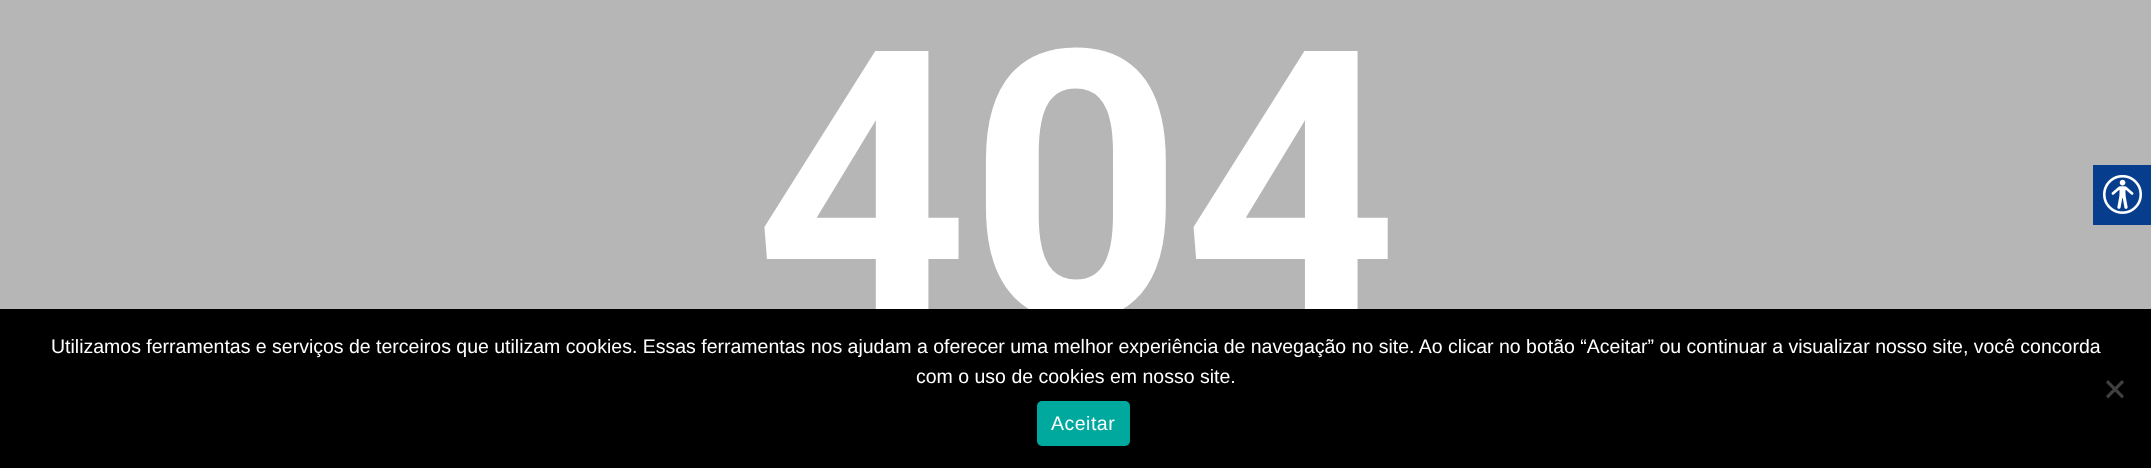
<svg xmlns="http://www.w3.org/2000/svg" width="2151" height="468">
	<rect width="100%" height="100%" fill="#B6B6B6" />
	<text x="754" y="317" font-family="Roboto" font-size="374" font-weight="700" fill="#FFFFFF">404</text>
	<rect x="2093" y="165" width="58" height="60" fill="#063D8D" />
	<image x="2103" y="174" width="39" height="40" href="assets/img1.png" />
	<rect x="0" y="309" width="2151" height="159" fill="#000000" />
	<g font-family="Liberation Sans" font-size="19.5" fill="#FFFFFF">
		<text x="51" y="353">Utilizamos ferramentas e serviços de terceiros que utilizam cookies. Essas ferramentas nos ajudam a oferecer uma melhor experiência de navegação no site. Ao clicar no botão “Aceitar” ou continuar a visualizar nosso site, você concorda</text>
		<text x="916" y="383">com o uso de cookies em nosso site.</text>
	</g>
	<path d="M2122 380L2124 382.5L2108 398.5L2106 396Z" fill="#404040" />
	<path d="M2106 382.5L2108 380L2124 396L2122 398.5Z" fill="#404040" />
	<rect x="1037" y="401" width="93" height="45" rx="5" fill="#00A99D" />
	<text x="1051" y="430" font-family="Liberation Sans" font-size="19.5" letter-spacing="0.5" fill="#FFFFFF">Aceitar</text>
</svg>
